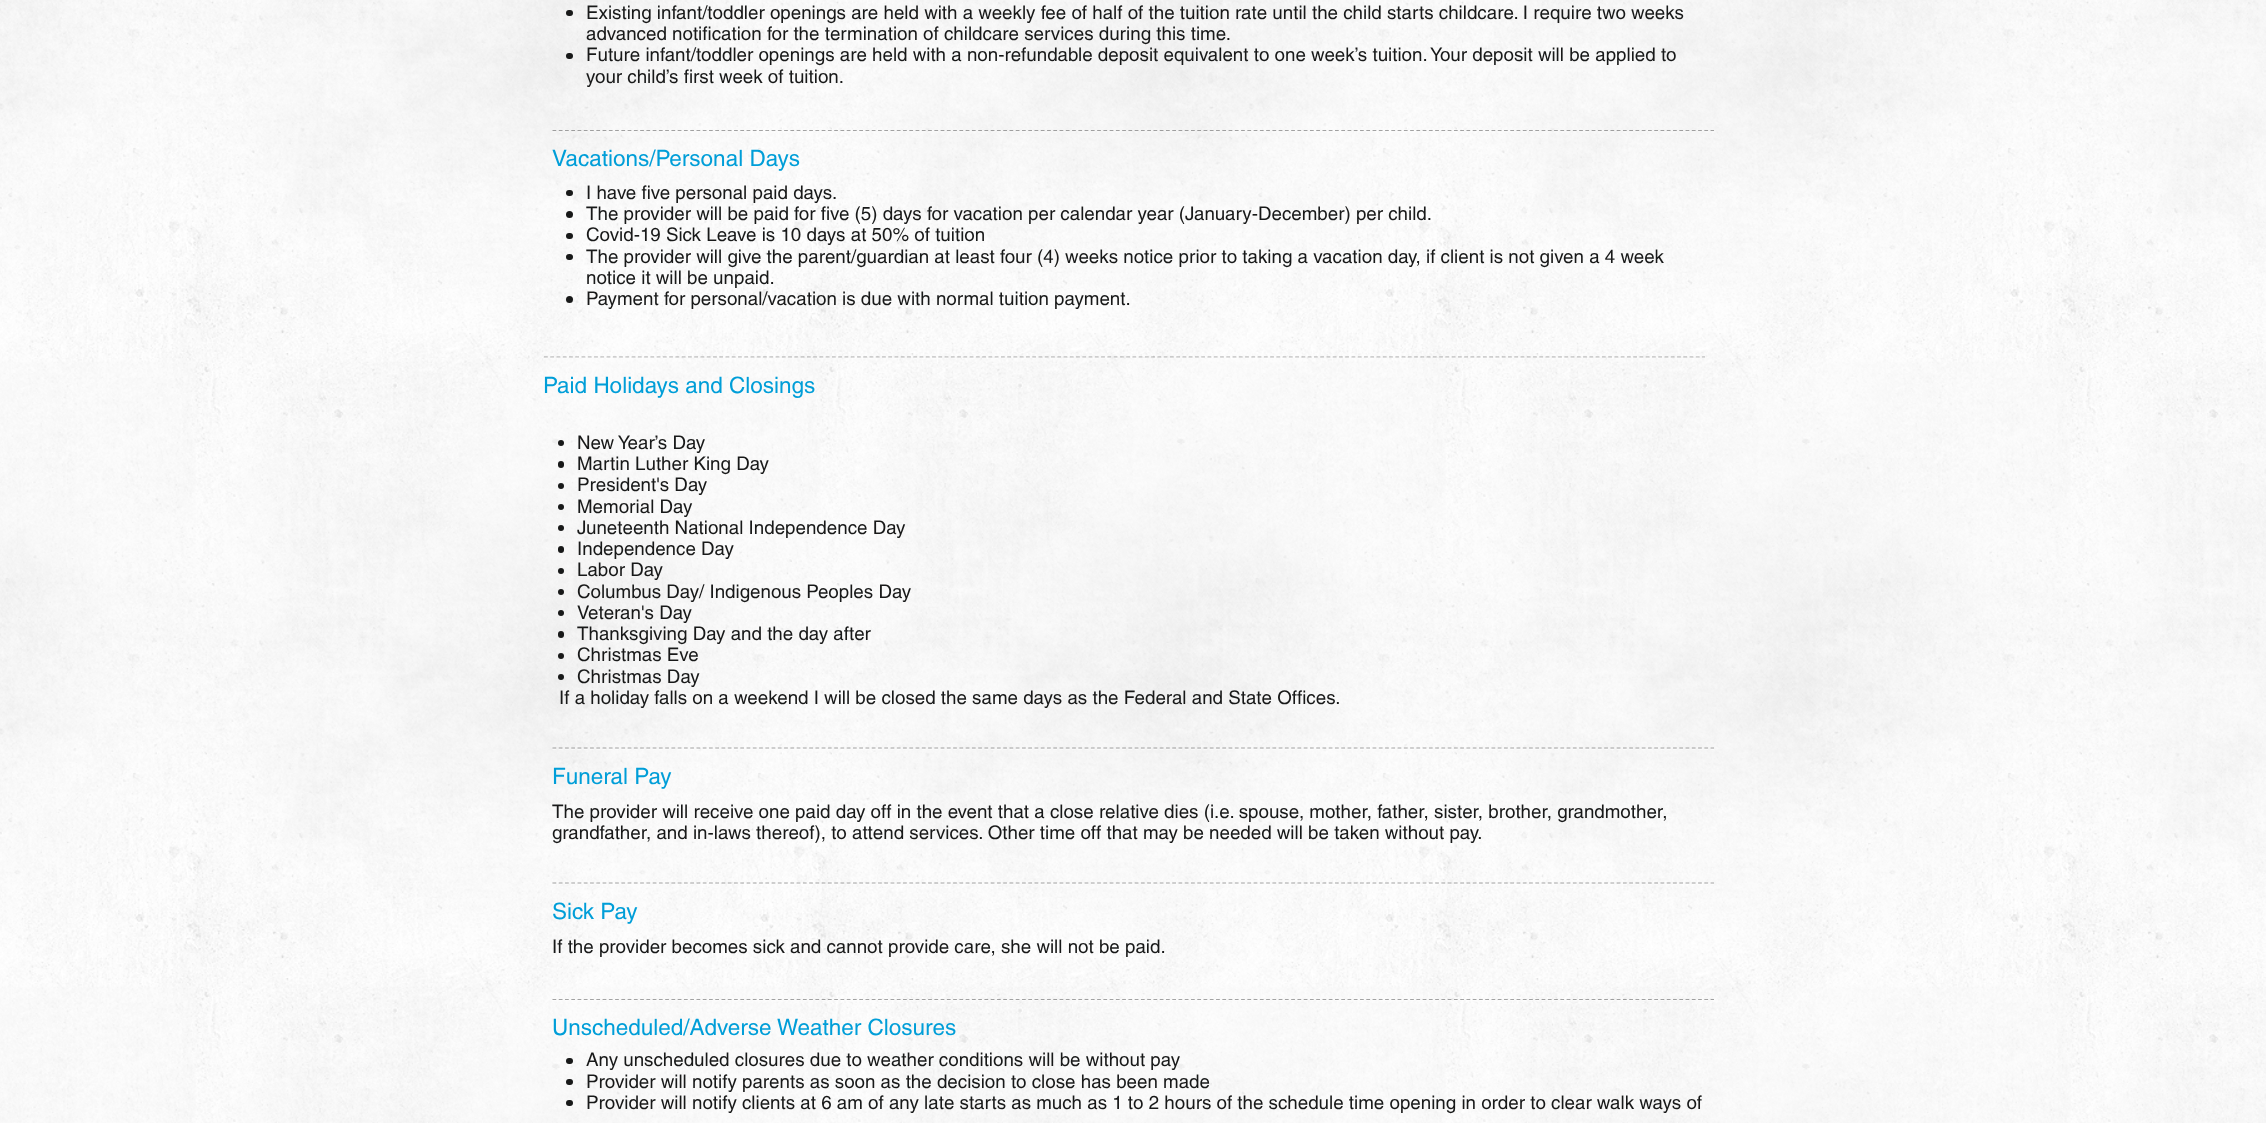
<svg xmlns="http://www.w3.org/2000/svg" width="2266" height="1123">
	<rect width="100%" height="100%" fill="#FFFFFF" />
	<image x="0" y="0" width="2266" height="1123" href="assets/img1.png" />
	<rect x="566" y="10" width="7" height="6" rx="3" fill="#181919" />
	<g font-family="helvetica" font-size="18.75" fill="#181919">
		<text x="586" y="19">Existing infant/toddler openings are held with a weekly fee of half of the tuition rate until the child starts childcare. I require two weeks</text>
		<text x="586" y="40">advanced notification for the termination of childcare services during this time.</text>
	</g>
	<rect x="566" y="53" width="7" height="6" rx="3" fill="#181919" />
	<g font-family="helvetica" font-size="18.75" fill="#181919">
		<text x="586" y="61">Future infant/toddler openings are held with a non-refundable deposit equivalent to one week’s tuition. Your deposit will be applied to</text>
		<text x="586" y="83">your child’s first week of tuition.</text>
	</g>
	<path d="M552.5 130.5H1714" fill="none" stroke="#000000" stroke-opacity="0.35" stroke-width="1.2" stroke-dasharray="3.75 2.51" />
	<path d="M552.5 132H1714" fill="none" stroke="#FFFFFF" stroke-opacity="0.5" stroke-width="1.2" stroke-dasharray="3.75 2.51" />
	<text x="552" y="166" font-family="helvetica" font-size="22.5" fill="#009ED8">Vacations/Personal Days</text>
	<rect x="566" y="190" width="7" height="6" rx="3" fill="#181919" />
	<text x="586" y="199" font-family="helvetica" font-size="18.75" fill="#181919">I have five personal paid days.</text>
	<circle cx="569.5" cy="214.5" r="3.5" fill="#181919" />
	<text x="586" y="220" font-family="helvetica" font-size="18.75" fill="#181919">The provider will be paid for five (5) days for vacation per calendar year (January-December) per child.</text>
	<rect x="566" y="233" width="7" height="6" rx="3" fill="#181919" />
	<text x="586" y="241" font-family="helvetica" font-size="18.75" fill="#181919">Covid-19 Sick Leave is 10 days at 50% of tuition</text>
	<rect x="566" y="254" width="7" height="6" rx="3" fill="#181919" />
	<g font-family="helvetica" font-size="18.75" fill="#181919">
		<text x="586" y="263">The provider will give the parent/guardian at least four (4) weeks notice prior to taking a vacation day, if client is not given a 4 week</text>
		<text x="586" y="284">notice it will be unpaid.</text>
	</g>
	<circle cx="569.5" cy="299.5" r="3.5" fill="#181919" />
	<text x="586" y="305" font-family="helvetica" font-size="18.75" fill="#181919">Payment for personal/vacation is due with normal tuition payment.</text>
	<path d="M544 357H1705" fill="none" stroke="#000000" stroke-opacity="0.35" stroke-width="1.2" stroke-dasharray="3.75 2.51" />
	<path d="M544 358H1705" fill="none" stroke="#FFFFFF" stroke-opacity="0.5" stroke-width="1.2" stroke-dasharray="3.75 2.51" />
	<text x="543" y="393" font-family="helvetica" font-size="22.5" fill="#009ED8">Paid Holidays and Closings</text>
	<circle cx="561" cy="443" r="3" fill="#181919" />
	<text x="577" y="449" font-family="helvetica" font-size="18.75" fill="#181919">New Year’s Day</text>
	<rect x="558" y="461" width="6" height="7" rx="3" fill="#181919" />
	<text x="577" y="470" font-family="helvetica" font-size="18.75" fill="#181919">Martin Luther King Day</text>
	<circle cx="561" cy="486" r="3" fill="#181919" />
	<text x="577" y="491" font-family="helvetica" font-size="18.75" fill="#181919">President's Day</text>
	<circle cx="561" cy="507" r="3" fill="#181919" />
	<text x="577" y="513" font-family="helvetica" font-size="18.75" fill="#181919">Memorial Day</text>
	<circle cx="561" cy="528" r="3" fill="#181919" />
	<text x="577" y="534" font-family="helvetica" font-size="18.75" fill="#181919">Juneteenth National Independence Day</text>
	<rect x="558" y="546" width="6" height="7" rx="3" fill="#181919" />
	<text x="577" y="555" font-family="helvetica" font-size="18.75" fill="#181919">Independence Day</text>
	<circle cx="561" cy="571" r="3" fill="#181919" />
	<text x="577" y="576" font-family="helvetica" font-size="18.75" fill="#181919">Labor Day</text>
	<circle cx="561" cy="592" r="3" fill="#181919" />
	<text x="577" y="598" font-family="helvetica" font-size="18.75" fill="#181919">Columbus Day/ Indigenous Peoples Day</text>
	<circle cx="561" cy="613" r="3" fill="#181919" />
	<text x="577" y="619" font-family="helvetica" font-size="18.75" fill="#181919">Veteran's Day</text>
	<rect x="558" y="631" width="6" height="7" rx="3" fill="#181919" />
	<text x="577" y="640" font-family="helvetica" font-size="18.75" fill="#181919">Thanksgiving Day and the day after</text>
	<circle cx="561" cy="656" r="3" fill="#181919" />
	<text x="577" y="661" font-family="helvetica" font-size="18.75" fill="#181919">Christmas Eve</text>
	<circle cx="561" cy="677" r="3" fill="#181919" />
	<g font-family="helvetica" font-size="18.75" fill="#181919">
		<text x="577" y="683">Christmas Day</text>
		<text x="559" y="704">If a holiday falls on a weekend I will be closed the same days as the Federal and State Offices.</text>
	</g>
	<path d="M552.5 748H1714" fill="none" stroke="#000000" stroke-opacity="0.35" stroke-width="1.2" stroke-dasharray="3.75 2.51" />
	<path d="M552.5 749.5H1714" fill="none" stroke="#FFFFFF" stroke-opacity="0.5" stroke-width="1.2" stroke-dasharray="3.75 2.51" />
	<text x="552" y="784" font-family="helvetica" font-size="22.5" fill="#009ED8">Funeral Pay</text>
	<g font-family="helvetica" font-size="18.75" fill="#181919">
		<text x="552" y="818">The provider will receive one paid day off in the event that a close relative dies (i.e. spouse, mother, father, sister, brother, grandmother,</text>
		<text x="552" y="839">grandfather, and in-laws thereof), to attend services. Other time off that may be needed will be taken without pay.</text>
	</g>
	<path d="M552.5 883H1714" fill="none" stroke="#000000" stroke-opacity="0.35" stroke-width="1.2" stroke-dasharray="3.75 2.51" />
	<path d="M552.5 884.5H1714" fill="none" stroke="#FFFFFF" stroke-opacity="0.5" stroke-width="1.2" stroke-dasharray="3.75 2.51" />
	<text x="552" y="919" font-family="helvetica" font-size="22.5" fill="#009ED8">Sick Pay</text>
	<text x="552" y="953" font-family="helvetica" font-size="18.75" fill="#181919">If the provider becomes sick and cannot provide care, she will not be paid.</text>
	<path d="M552.5 999.5H1714" fill="none" stroke="#000000" stroke-opacity="0.35" stroke-width="1.2" stroke-dasharray="3.75 2.51" />
	<path d="M552.5 1000.5H1714" fill="none" stroke="#FFFFFF" stroke-opacity="0.5" stroke-width="1.2" stroke-dasharray="3.75 2.51" />
	<text x="552" y="1035" font-family="helvetica" font-size="22.5" fill="#009ED8">Unscheduled/Adverse Weather Closures</text>
	<rect x="566" y="1058" width="7" height="6" rx="3" fill="#181919" />
	<text x="586" y="1066" font-family="helvetica" font-size="18.75" fill="#181919">Any unscheduled closures due to weather conditions will be without pay</text>
	<rect x="566" y="1079" width="7" height="6" rx="3" fill="#181919" />
	<text x="586" y="1088" font-family="helvetica" font-size="18.75" fill="#181919">Provider will notify parents as soon as the decision to close has been made</text>
	<rect x="566" y="1100" width="7" height="6" rx="3" fill="#181919" />
	<text x="586" y="1109" font-family="helvetica" font-size="18.75" fill="#181919">Provider will notify clients at 6 am of any late starts as much as 1 to 2 hours of the schedule time opening in order to clear walk ways of</text>
</svg>
